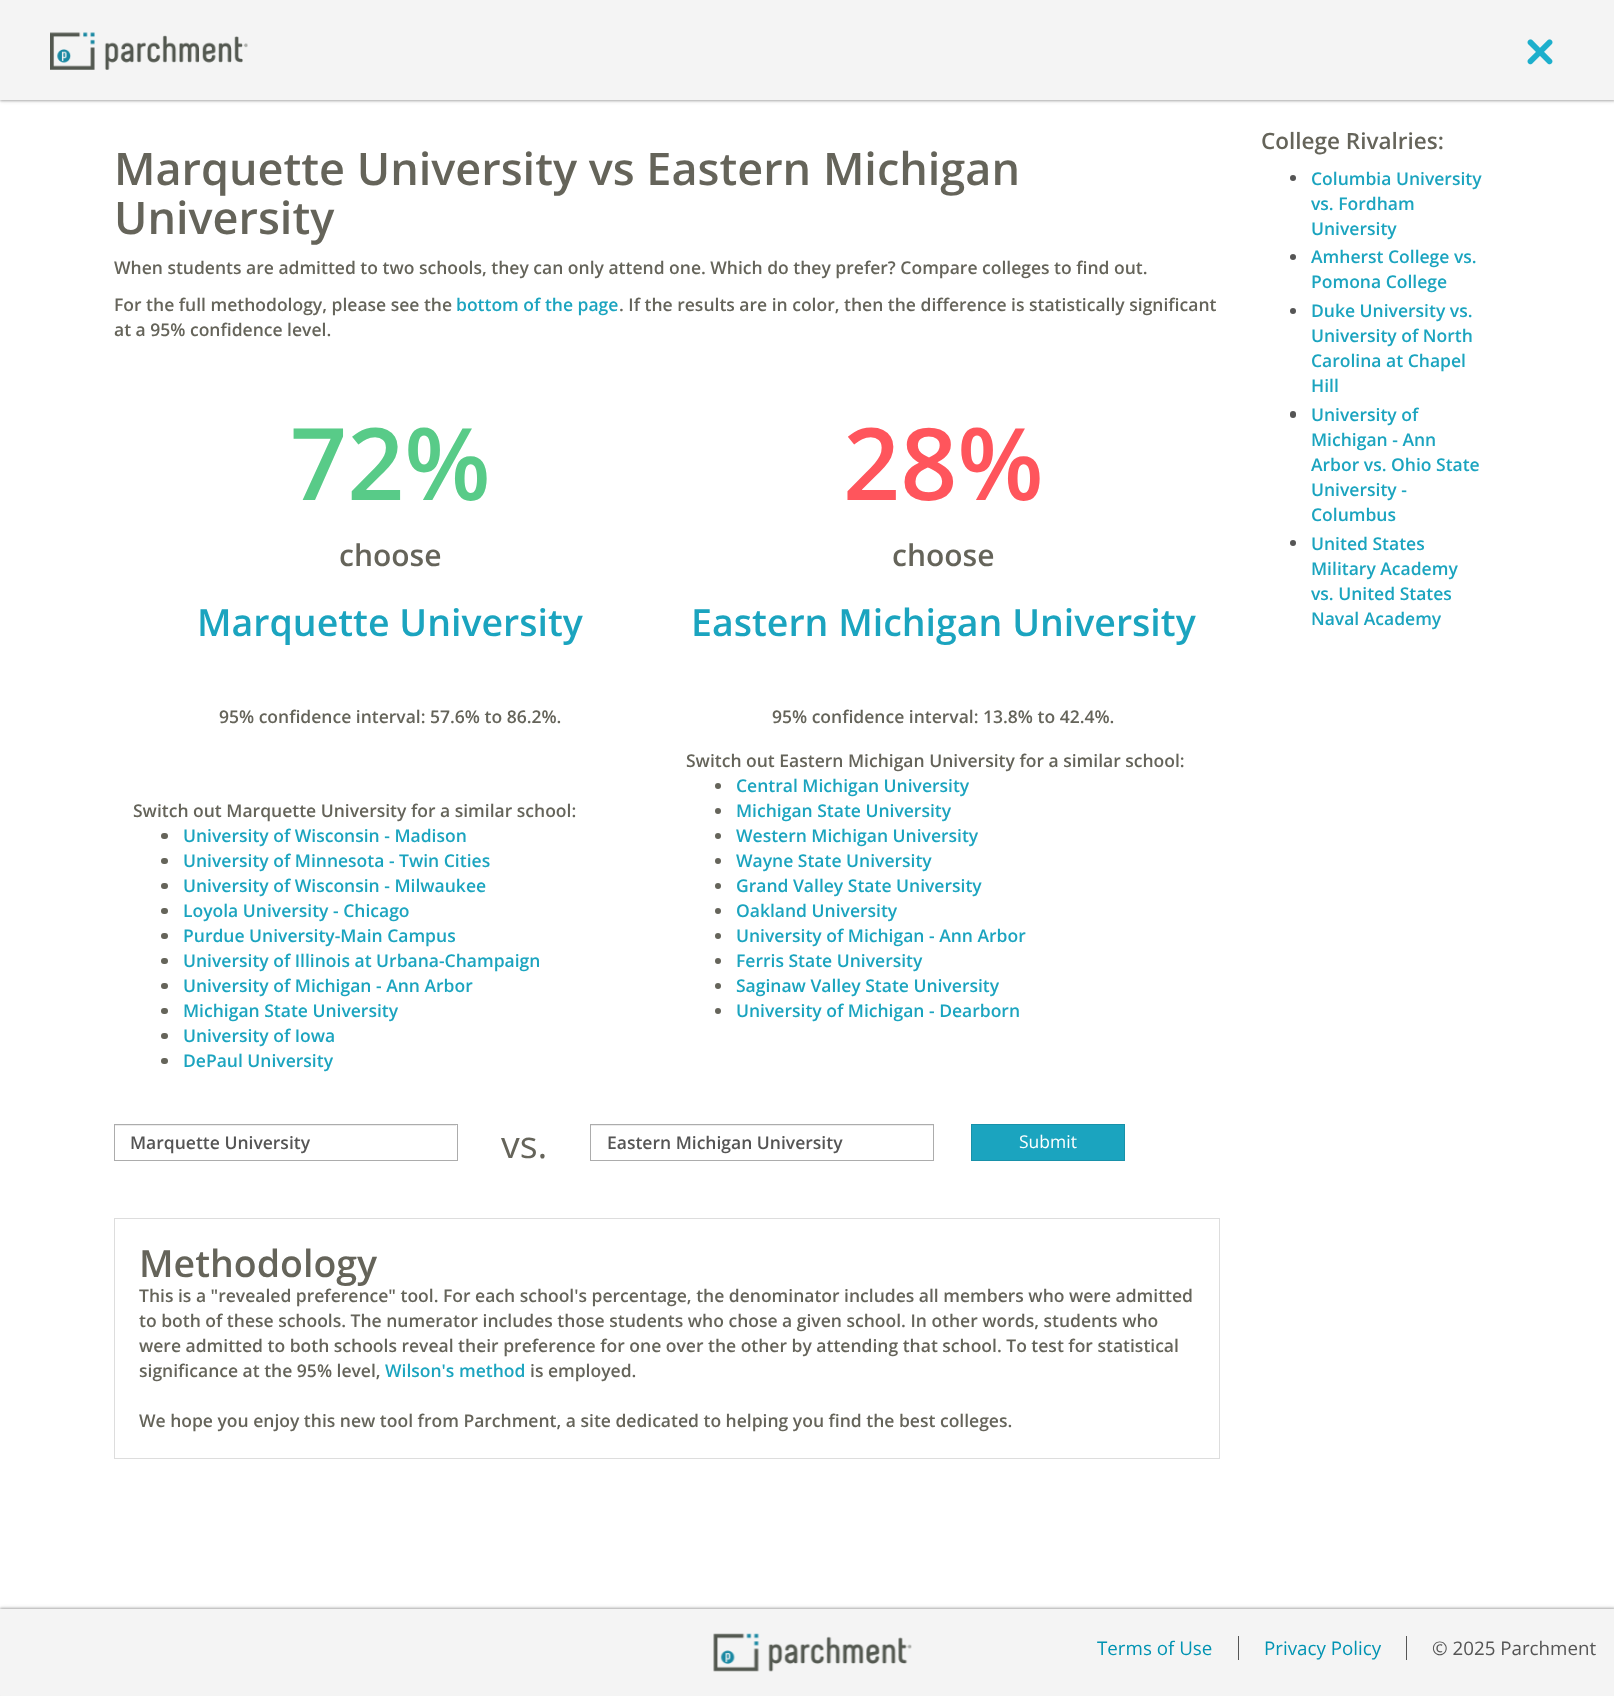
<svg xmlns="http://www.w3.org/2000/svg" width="1614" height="1696">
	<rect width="100%" height="100%" fill="#FFFFFF" />
	<rect x="0" y="1" width="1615" height="100" fill="#000000" fill-opacity="0.24" filter="blur(1px)" />
	<rect x="0" y="1" width="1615" height="100" fill="#000000" fill-opacity="0.12" filter="blur(2px)" />
	<rect x="0" y="0" width="1614" height="100" fill="#F4F4F4" />
	<image x="50" y="32" width="198" height="38" href="assets/img1.png" />
	<image x="1527" y="39" width="26" height="26" href="assets/img2.png" />
	<g font-family="Open Sans" font-size="45" font-weight="600" fill="#65645A">
		<text x="114" y="185">Marquette University vs Eastern Michigan</text>
		<text x="114" y="234">University</text>
	</g>
	<g font-family="Open Sans" font-size="17.5" font-weight="600" fill="#65645A">
		<text x="114" y="274">When students are admitted to two schools, they can only attend one. Which do they prefer? Compare colleges to find out.</text>
		<text x="114" y="311">For the full methodology, please see the</text>
	</g>
	<text x="456" y="311" font-family="Open Sans" font-size="17.5" font-weight="600" fill="#1BA4BF">bottom of the page</text>
	<g font-family="Open Sans" font-size="17.5" font-weight="600" fill="#65645A">
		<text x="619" y="311">. If the results are in color, then the difference is statistically significant</text>
		<text x="114" y="336">at a 95% confidence level.</text>
	</g>
	<text x="290" y="500" font-family="Open Sans" font-size="100" font-weight="600" fill="#58CB88">72%</text>
	<text x="339" y="566" font-family="Open Sans" font-size="30" font-weight="600" fill="#65645A">choose</text>
	<text x="197" y="636" font-family="Open Sans" font-size="37.5" font-weight="600" fill="#1BA4BF">Marquette University</text>
	<g font-family="Open Sans" font-size="17.5" font-weight="600" fill="#65645A">
		<text x="219" y="723">95% confidence interval: 57.6% to 86.2%.</text>
		<text x="133" y="817">Switch out Marquette University for a similar school:</text>
	</g>
	<rect x="161" y="833" width="7" height="6" rx="3" fill="#65645A" />
	<text x="183" y="842" font-family="Open Sans" font-size="17.5" font-weight="600" fill="#1BA4BF">University of Wisconsin - Madison</text>
	<rect x="161" y="858" width="7" height="6" rx="3" fill="#65645A" />
	<text x="183" y="867" font-family="Open Sans" font-size="17.5" font-weight="600" fill="#1BA4BF">University of Minnesota - Twin Cities</text>
	<rect x="161" y="883" width="7" height="6" rx="3" fill="#65645A" />
	<text x="183" y="892" font-family="Open Sans" font-size="17.5" font-weight="600" fill="#1BA4BF">University of Wisconsin - Milwaukee</text>
	<rect x="161" y="908" width="7" height="6" rx="3" fill="#65645A" />
	<text x="183" y="917" font-family="Open Sans" font-size="17.5" font-weight="600" fill="#1BA4BF">Loyola University - Chicago</text>
	<rect x="161" y="933" width="7" height="6" rx="3" fill="#65645A" />
	<text x="183" y="942" font-family="Open Sans" font-size="17.5" font-weight="600" fill="#1BA4BF">Purdue University-Main Campus</text>
	<rect x="161" y="958" width="7" height="6" rx="3" fill="#65645A" />
	<text x="183" y="967" font-family="Open Sans" font-size="17.5" font-weight="600" fill="#1BA4BF">University of Illinois at Urbana-Champaign</text>
	<rect x="161" y="983" width="7" height="6" rx="3" fill="#65645A" />
	<text x="183" y="992" font-family="Open Sans" font-size="17.5" font-weight="600" fill="#1BA4BF">University of Michigan - Ann Arbor</text>
	<rect x="161" y="1008" width="7" height="6" rx="3" fill="#65645A" />
	<text x="183" y="1017" font-family="Open Sans" font-size="17.5" font-weight="600" fill="#1BA4BF">Michigan State University</text>
	<rect x="161" y="1033" width="7" height="6" rx="3" fill="#65645A" />
	<text x="183" y="1042" font-family="Open Sans" font-size="17.5" font-weight="600" fill="#1BA4BF">University of Iowa</text>
	<rect x="161" y="1058" width="7" height="6" rx="3" fill="#65645A" />
	<text x="183" y="1067" font-family="Open Sans" font-size="17.5" font-weight="600" fill="#1BA4BF">DePaul University</text>
	<text x="843" y="500" font-family="Open Sans" font-size="100" font-weight="600" fill="#FF555C">28%</text>
	<text x="892" y="566" font-family="Open Sans" font-size="30" font-weight="600" fill="#65645A">choose</text>
	<text x="691" y="636" font-family="Open Sans" font-size="37.5" font-weight="600" fill="#1BA4BF">Eastern Michigan University</text>
	<g font-family="Open Sans" font-size="17.5" font-weight="600" fill="#65645A">
		<text x="772" y="723">95% confidence interval: 13.8% to 42.4%.</text>
		<text x="686" y="767">Switch out Eastern Michigan University for a similar school:</text>
	</g>
	<circle cx="718" cy="786" r="3" fill="#65645A" />
	<text x="736" y="792" font-family="Open Sans" font-size="17.5" font-weight="600" fill="#1BA4BF">Central Michigan University</text>
	<circle cx="718" cy="811" r="3" fill="#65645A" />
	<text x="736" y="817" font-family="Open Sans" font-size="17.5" font-weight="600" fill="#1BA4BF">Michigan State University</text>
	<circle cx="718" cy="836" r="3" fill="#65645A" />
	<text x="736" y="842" font-family="Open Sans" font-size="17.5" font-weight="600" fill="#1BA4BF">Western Michigan University</text>
	<circle cx="718" cy="861" r="3" fill="#65645A" />
	<text x="736" y="867" font-family="Open Sans" font-size="17.5" font-weight="600" fill="#1BA4BF">Wayne State University</text>
	<circle cx="718" cy="886" r="3" fill="#65645A" />
	<text x="736" y="892" font-family="Open Sans" font-size="17.5" font-weight="600" fill="#1BA4BF">Grand Valley State University</text>
	<circle cx="718" cy="911" r="3" fill="#65645A" />
	<text x="736" y="917" font-family="Open Sans" font-size="17.5" font-weight="600" fill="#1BA4BF">Oakland University</text>
	<circle cx="718" cy="936" r="3" fill="#65645A" />
	<text x="736" y="942" font-family="Open Sans" font-size="17.5" font-weight="600" fill="#1BA4BF">University of Michigan - Ann Arbor</text>
	<circle cx="718" cy="961" r="3" fill="#65645A" />
	<text x="736" y="967" font-family="Open Sans" font-size="17.5" font-weight="600" fill="#1BA4BF">Ferris State University</text>
	<circle cx="718" cy="986" r="3" fill="#65645A" />
	<text x="736" y="992" font-family="Open Sans" font-size="17.5" font-weight="600" fill="#1BA4BF">Saginaw Valley State University</text>
	<circle cx="718" cy="1011" r="3" fill="#65645A" />
	<text x="736" y="1017" font-family="Open Sans" font-size="17.5" font-weight="600" fill="#1BA4BF">University of Michigan - Dearborn</text>
	<rect x="115" y="1125" width="341" height="1" fill="#ECECEC" />
	<rect x="114.5" y="1124.5" width="343" height="36" fill="none" stroke="#ACACAC" />
	<text x="130" y="1149" font-family="Open Sans" font-size="17.5" font-weight="600" fill="#555555">Marquette University</text>
	<text x="501" y="1158" font-family="Open Sans" font-size="37.5" fill="#65645A">vs.</text>
	<rect x="591" y="1125" width="342" height="1" fill="#ECECEC" />
	<rect x="590.5" y="1124.5" width="343" height="36" fill="none" stroke="#ACACAC" />
	<text x="607" y="1149" font-family="Open Sans" font-size="17.5" font-weight="600" fill="#555555">Eastern Michigan University</text>
	<rect x="971.5" y="1124.5" width="153" height="36" fill="#1BA4BF" stroke="#1891A9" />
	<text x="1019" y="1148" font-family="Open Sans" font-size="17.5" fill="#FFFFFF">Submit</text>
	<rect x="114.5" y="1218.5" width="1105" height="240" fill="none" stroke="#DDDDDD" />
	<text x="139" y="1277" font-family="Open Sans" font-size="37.5" font-weight="600" fill="#65645A">Methodology</text>
	<g font-family="Open Sans" font-size="17.5" font-weight="600" fill="#65645A">
		<text x="139" y="1302">This is a "revealed preference" tool. For each school's percentage, the denominator includes all members who were admitted</text>
		<text x="139" y="1327">to both of these schools. The numerator includes those students who chose a given school. In other words, students who</text>
		<text x="139" y="1352">were admitted to both schools reveal their preference for one over the other by attending that school. To test for statistical</text>
		<text x="139" y="1377">significance at the 95% level,</text>
	</g>
	<text x="385" y="1377" font-family="Open Sans" font-size="17.5" font-weight="600" fill="#1BA4BF">Wilson's method</text>
	<g font-family="Open Sans" font-size="17.5" font-weight="600" fill="#65645A">
		<text x="530" y="1377">is employed.</text>
		<text x="139" y="1427">We hope you enjoy this new tool from Parchment, a site dedicated to helping you find the best colleges.</text>
	</g>
	<text x="1261" y="149" font-family="Open Sans" font-size="22.5" font-weight="600" fill="#65645A">College Rivalries:</text>
	<circle cx="1293" cy="178" r="3" fill="#555555" />
	<g font-family="Open Sans" font-size="17.5" font-weight="600" fill="#1BA4BF">
		<text x="1311" y="185">Columbia University</text>
		<text x="1311" y="210">vs. Fordham</text>
		<text x="1311" y="235">University</text>
	</g>
	<circle cx="1293" cy="257" r="3" fill="#555555" />
	<g font-family="Open Sans" font-size="17.5" font-weight="600" fill="#1BA4BF">
		<text x="1311" y="263">Amherst College vs.</text>
		<text x="1311" y="288">Pomona College</text>
	</g>
	<circle cx="1293" cy="311" r="3" fill="#555555" />
	<g font-family="Open Sans" font-size="17.5" font-weight="600" fill="#1BA4BF">
		<text x="1311" y="317">Duke University vs.</text>
		<text x="1311" y="342">University of North</text>
		<text x="1311" y="367">Carolina at Chapel</text>
		<text x="1311" y="392">Hill</text>
	</g>
	<rect x="1290" y="411" width="6" height="7" rx="3" fill="#555555" />
	<g font-family="Open Sans" font-size="17.5" font-weight="600" fill="#1BA4BF">
		<text x="1311" y="421">University of</text>
		<text x="1311" y="446">Michigan - Ann</text>
		<text x="1311" y="471">Arbor vs. Ohio State</text>
		<text x="1311" y="496">University -</text>
		<text x="1311" y="521">Columbus</text>
	</g>
	<circle cx="1293" cy="543" r="3" fill="#555555" />
	<g font-family="Open Sans" font-size="17.5" font-weight="600" fill="#1BA4BF">
		<text x="1311" y="550">United States</text>
		<text x="1311" y="575">Military Academy</text>
		<text x="1311" y="600">vs. United States</text>
		<text x="1311" y="625">Naval Academy</text>
	</g>
	<rect x="0" y="1608" width="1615" height="87" fill="#000000" fill-opacity="0.24" filter="blur(1px)" />
	<rect x="0" y="1608" width="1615" height="87" fill="#000000" fill-opacity="0.12" filter="blur(2px)" />
	<path d="M0 1609H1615V1695C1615 1695.5 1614.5 1696 1614 1696H1C.5 1696 0 1695.5 0 1695Z" fill="#F4F4F4" />
	<image x="713" y="1633" width="199" height="39" href="assets/img3.png" />
	<text x="1097" y="1655" font-family="Open Sans" font-size="18.75" fill="#0093B2">Terms of Use</text>
	<rect x="1238" y="1636" width="1" height="24" fill="#555555" />
	<text x="1264" y="1655" font-family="Open Sans" font-size="18.75" fill="#0093B2">Privacy Policy</text>
	<rect x="1406" y="1636" width="1" height="24" fill="#555555" />
	<text x="1432" y="1655" font-family="Open Sans" font-size="18.75" fill="#555555">© 2025 Parchment</text>
</svg>
